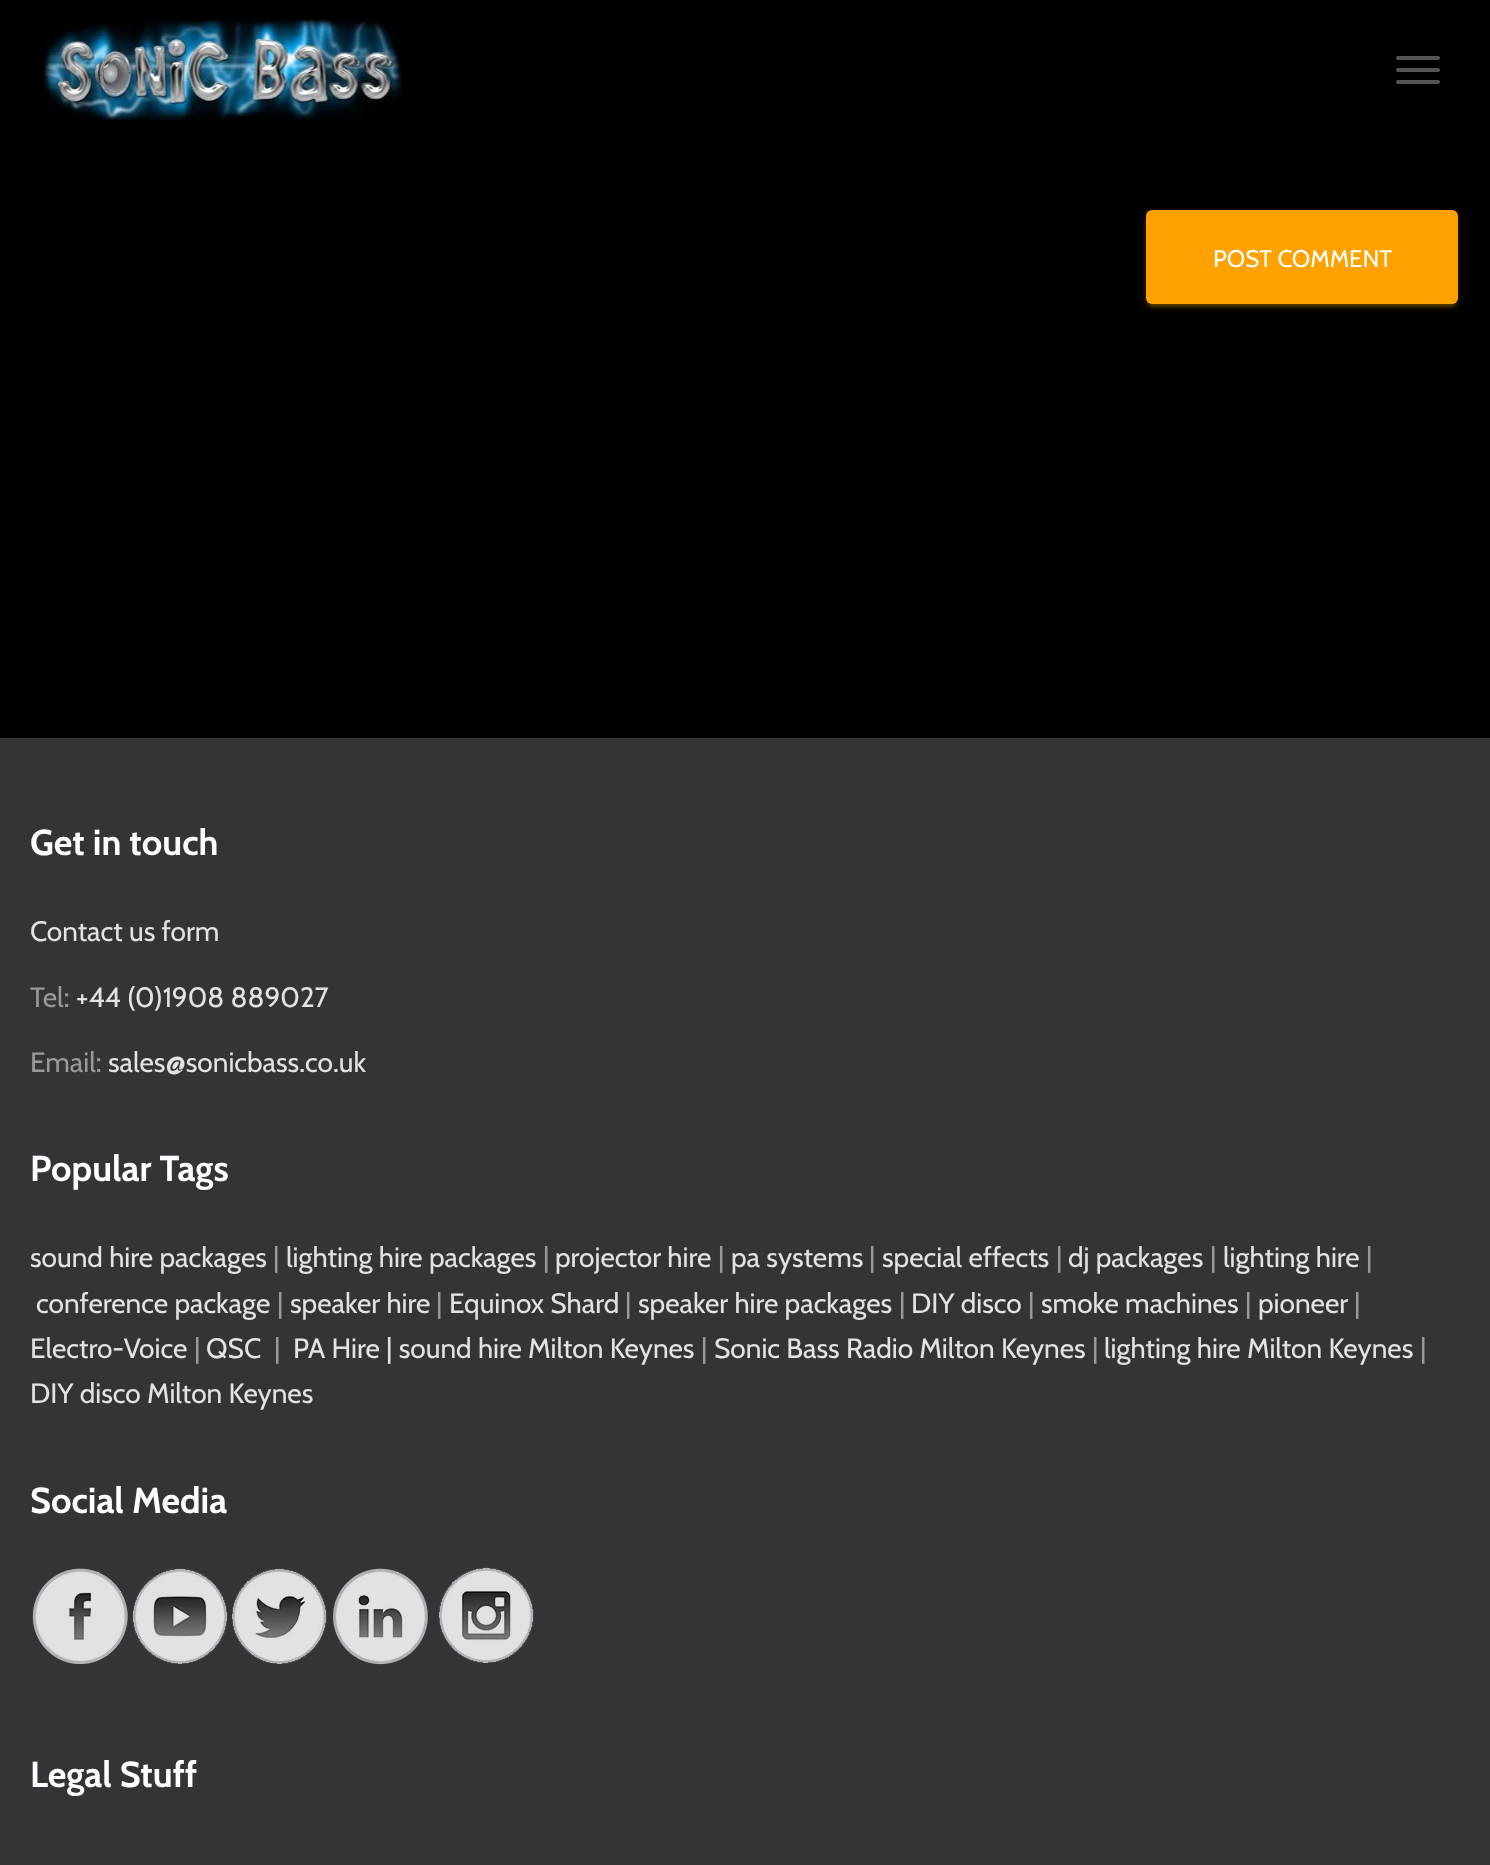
<svg xmlns="http://www.w3.org/2000/svg" width="1490" height="1865">
	<rect width="100%" height="100%" fill="#000000" />
	<image x="43" y="20" width="359" height="100" href="assets/img1.png" />
	<rect x="1396" y="56" width="44" height="4" rx="2" fill="#555555" />
	<rect x="1396" y="68" width="44" height="4" rx="2" fill="#555555" />
	<rect x="1396" y="80" width="44" height="4" rx="2" fill="#555555" />
	<rect x="1146" y="212" width="312" height="94" rx="6" fill="#FFA200" fill-opacity="0.12" filter="blur(5px)" />
	<rect x="1150" y="220" width="304" height="86" rx="2" fill="#FFA200" fill-opacity="0.2" filter="blur(1px)" />
	<rect x="1146" y="214" width="312" height="94" rx="6" fill="#FFA200" fill-opacity="0.14" filter="blur(2px)" />
	<rect x="1146" y="210" width="312" height="94" rx="6" fill="#FFA200" />
	<text x="1213" y="267" font-family="Cabin" font-size="24" fill="#FFFFFF">POST COMMENT</text>
	<rect x="0" y="738" width="1490" height="1127" fill="#323437" />
	<text x="30" y="855" font-family="Cabin" font-size="36" font-weight="700" fill="#FFFFFF">Get in touch</text>
	<text x="30" y="941" font-family="Cabin" font-size="28" fill="#E2E3E3">Contact us form</text>
	<text x="30" y="1007" font-family="Cabin" font-size="28" fill="#999999">Tel:</text>
	<text x="76" y="1007" font-family="Cabin" font-size="28" fill="#E2E3E3">+44 (0)1908 889027</text>
	<text x="30" y="1072" font-family="Cabin" font-size="28" fill="#999999">Email:</text>
	<text x="108" y="1072" font-family="Cabin" font-size="28" fill="#E2E3E3">sales@sonicbass.co.uk</text>
	<text x="30" y="1181" font-family="Cabin" font-size="36" font-weight="700" fill="#FFFFFF">Popular Tags</text>
	<text x="30" y="1267" font-family="Cabin" font-size="28" fill="#E2E3E3">sound hire packages</text>
	<text x="273" y="1267" font-family="Cabin" font-size="28" fill="#999999">|</text>
	<text x="286" y="1267" font-family="Cabin" font-size="28" fill="#E2E3E3">lighting hire packages</text>
	<text x="543" y="1267" font-family="Cabin" font-size="28" fill="#999999">|</text>
	<text x="555" y="1267" font-family="Cabin" font-size="28" fill="#E2E3E3">projector hire</text>
	<text x="718" y="1267" font-family="Cabin" font-size="28" fill="#999999">|</text>
	<text x="731" y="1267" font-family="Cabin" font-size="28" fill="#E2E3E3">pa systems</text>
	<text x="869" y="1267" font-family="Cabin" font-size="28" fill="#999999">|</text>
	<text x="882" y="1267" font-family="Cabin" font-size="28" fill="#E2E3E3">special effects</text>
	<text x="1056" y="1267" font-family="Cabin" font-size="28" fill="#999999">|</text>
	<text x="1068" y="1267" font-family="Cabin" font-size="28" fill="#E2E3E3">dj packages</text>
	<text x="1210" y="1267" font-family="Cabin" font-size="28" fill="#999999">|</text>
	<text x="1223" y="1267" font-family="Cabin" font-size="28" fill="#E2E3E3">lighting hire</text>
	<text x="1366" y="1267" font-family="Cabin" font-size="28" fill="#999999">|</text>
	<text x="36" y="1313" font-family="Cabin" font-size="28" fill="#E2E3E3">conference package</text>
	<text x="277" y="1313" font-family="Cabin" font-size="28" fill="#999999">|</text>
	<text x="290" y="1313" font-family="Cabin" font-size="28" fill="#E2E3E3">speaker hire</text>
	<text x="436" y="1313" font-family="Cabin" font-size="28" fill="#999999">|</text>
	<text x="449" y="1313" font-family="Cabin" font-size="28" fill="#E2E3E3">Equinox Shard</text>
	<text x="625" y="1313" font-family="Cabin" font-size="28" fill="#999999">|</text>
	<text x="638" y="1313" font-family="Cabin" font-size="28" fill="#E2E3E3">speaker hire packages</text>
	<text x="899" y="1313" font-family="Cabin" font-size="28" fill="#999999">|</text>
	<text x="911" y="1313" font-family="Cabin" font-size="28" fill="#E2E3E3">DIY disco</text>
	<text x="1028" y="1313" font-family="Cabin" font-size="28" fill="#999999">|</text>
	<text x="1041" y="1313" font-family="Cabin" font-size="28" fill="#E2E3E3">smoke machines</text>
	<text x="1245" y="1313" font-family="Cabin" font-size="28" fill="#999999">|</text>
	<text x="1258" y="1313" font-family="Cabin" font-size="28" fill="#E2E3E3">pioneer</text>
	<text x="1354" y="1313" font-family="Cabin" font-size="28" fill="#999999">|</text>
	<text x="30" y="1358" font-family="Cabin" font-size="28" fill="#E2E3E3">Electro-Voice</text>
	<text x="194" y="1358" font-family="Cabin" font-size="28" fill="#999999">|</text>
	<text x="206" y="1358" font-family="Cabin" font-size="28" fill="#E2E3E3">QSC</text>
	<text x="274" y="1358" font-family="Cabin" font-size="28" fill="#999999">|</text>
	<text x="293" y="1358" font-family="Cabin" font-size="28" fill="#E2E3E3">PA Hire | sound hire Milton Keynes</text>
	<text x="701" y="1358" font-family="Cabin" font-size="28" fill="#999999">|</text>
	<text x="714" y="1358" font-family="Cabin" font-size="28" fill="#E2E3E3">Sonic Bass Radio Milton Keynes</text>
	<text x="1092" y="1358" font-family="Cabin" font-size="28" fill="#999999">|</text>
	<text x="1104" y="1358" font-family="Cabin" font-size="28" fill="#E2E3E3">lighting hire Milton Keynes</text>
	<text x="1420" y="1358" font-family="Cabin" font-size="28" fill="#999999">|</text>
	<text x="30" y="1403" font-family="Cabin" font-size="28" fill="#E2E3E3">DIY disco Milton Keynes</text>
	<text x="30" y="1513" font-family="Cabin" font-size="36" font-weight="700" fill="#FFFFFF">Social Media</text>
	<image x="32" y="1568" width="96" height="97" href="assets/img2.png" />
	<image x="132" y="1568" width="96" height="96" href="assets/img3.png" />
	<image x="231" y="1568" width="96" height="96" href="assets/img4.png" />
	<image x="330" y="1566" width="99" height="99" href="assets/img5.png" />
	<image x="438" y="1567" width="96" height="97" href="assets/img6.png" />
	<text x="30" y="1787" font-family="Cabin" font-size="36" font-weight="700" fill="#FFFFFF">Legal Stuff</text>
</svg>
